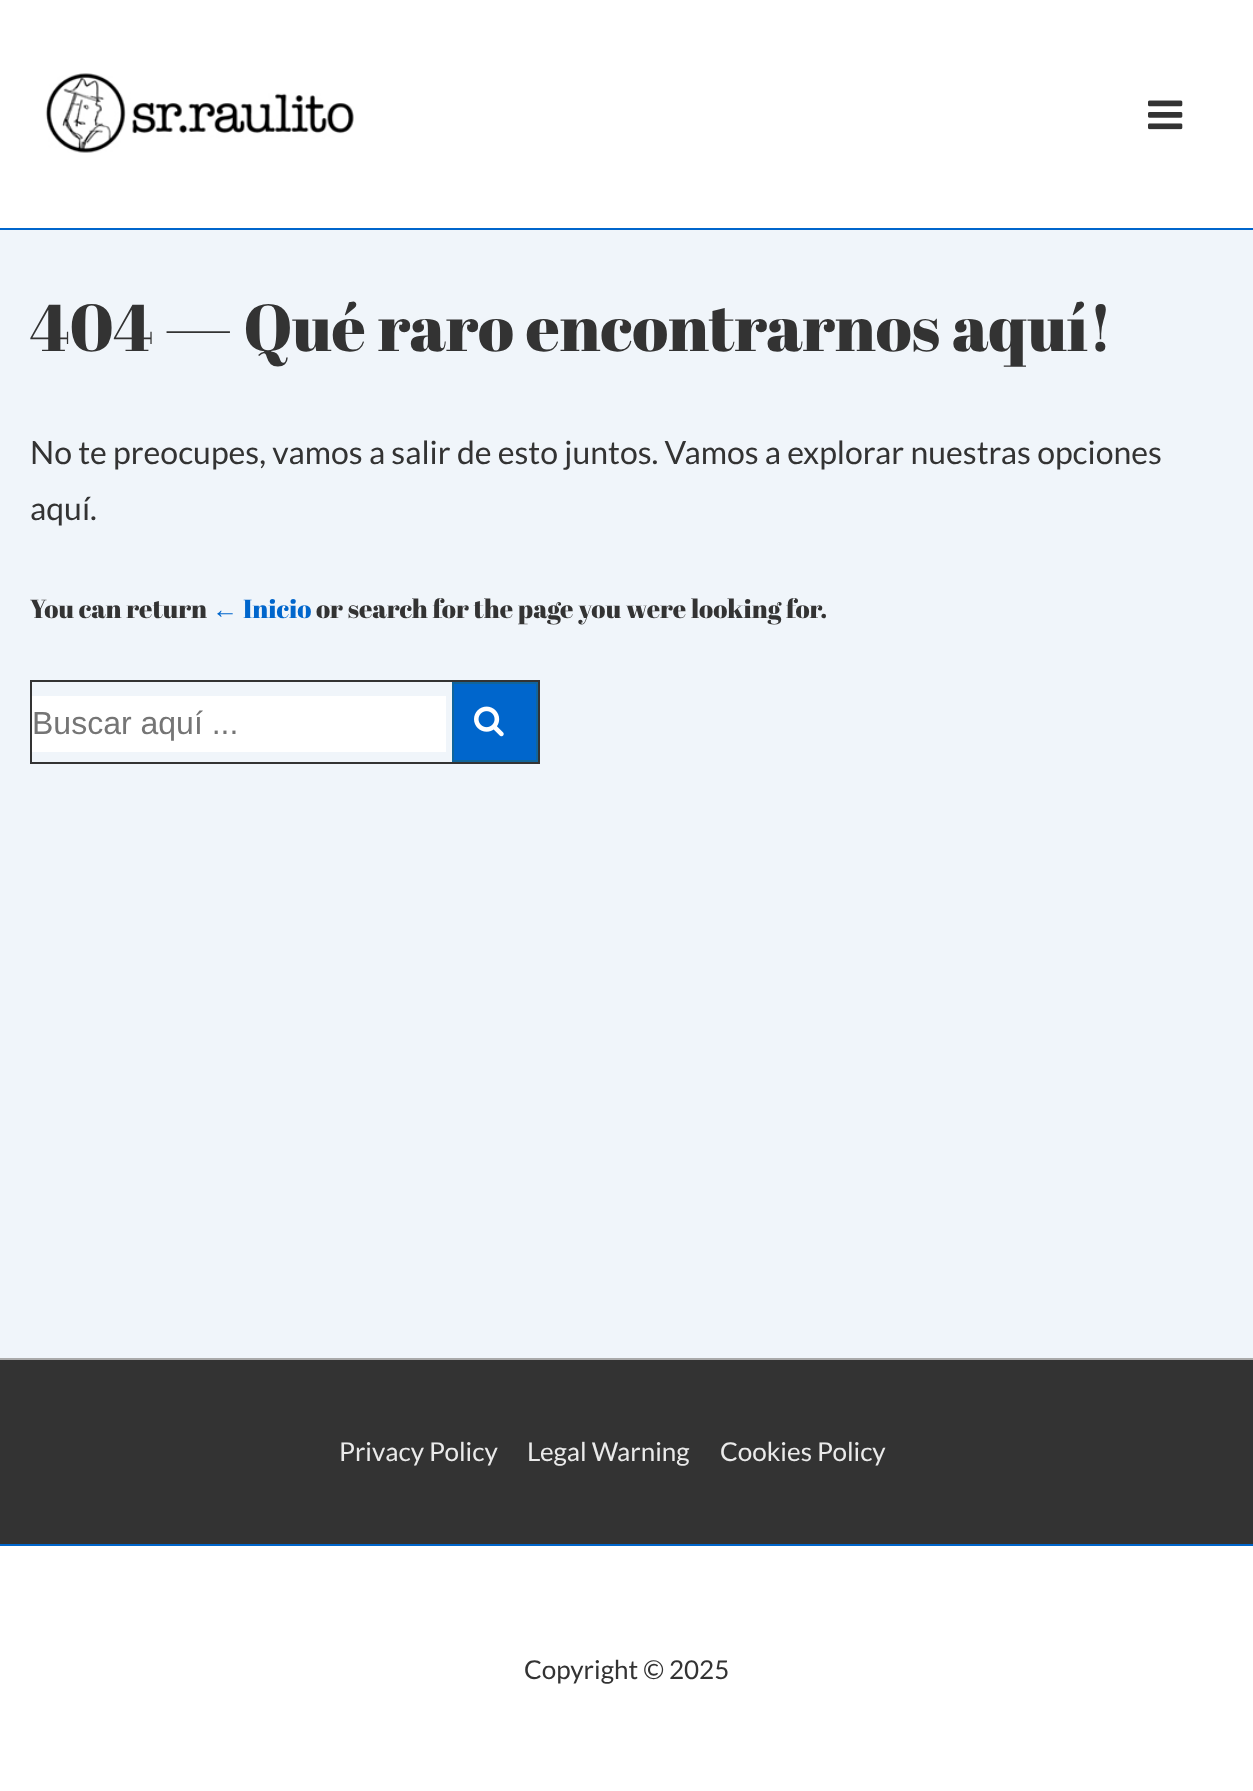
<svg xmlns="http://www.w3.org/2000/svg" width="1253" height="1791">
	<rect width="100%" height="100%" fill="#F0F5FA" />
	<rect x="0" y="0" width="1253" height="228" fill="#FFFFFF" />
	<rect x="0" y="228" width="1253" height="2" fill="#0066CC" />
	<image x="45" y="73" width="309" height="80" href="assets/img1.png" />
	<image x="1148" y="100" width="35" height="30" href="assets/img2.png" />
	<text x="30" y="351" font-family="Abril Fatface" font-size="66" fill="#333333">404 — Qué raro encontrarnos aquí!</text>
	<g font-family="Lato" font-size="32" fill="#333333">
		<text x="30" y="464">No te preocupes, vamos a salir de esto juntos. Vamos a explorar nuestras opciones</text>
		<text x="30" y="520">aquí.</text>
	</g>
	<text x="30" y="618" font-family="Abril Fatface" font-size="26" fill="#333333">You can return</text>
	<text x="212" y="618" font-family="Liberation Serif" font-size="26" fill="#0066CC">←</text>
	<text x="243" y="618" font-family="Abril Fatface" font-size="26" fill="#0066CC">Inicio</text>
	<text x="316" y="618" font-family="Abril Fatface" font-size="26" fill="#333333">or search for the page you were looking for.</text>
	<rect x="31" y="681" width="508" height="82" fill="none" stroke="#333333" stroke-width="2" />
	<rect x="32" y="696" width="414" height="56" fill="#FFFFFF" />
	<text x="32" y="734" font-family="Liberation Sans" font-size="32" fill="#757575">Buscar aquí ...</text>
	<rect x="453" y="683" width="84" height="78" fill="#0066CC" stroke="#10659C" stroke-width="2" />
	<image x="474" y="706" width="30" height="31" href="assets/img3.png" />
	<rect x="0" y="1360" width="1253" height="184" fill="#333333" />
	<rect x="0" y="1358" width="1253" height="2" fill="#AAAAAA" />
	<g font-family="Lato" font-size="26" fill="#EAEAEA">
		<text x="339" y="1461">Privacy Policy</text>
		<text x="527" y="1461">Legal Warning</text>
		<text x="720" y="1461">Cookies Policy</text>
	</g>
	<rect x="0" y="1546" width="1253" height="245" fill="#FFFFFF" />
	<rect x="0" y="1544" width="1253" height="2" fill="#0066CC" />
	<text x="524" y="1679" font-family="Lato" font-size="26" fill="#333333">Copyright © 2025</text>
</svg>
